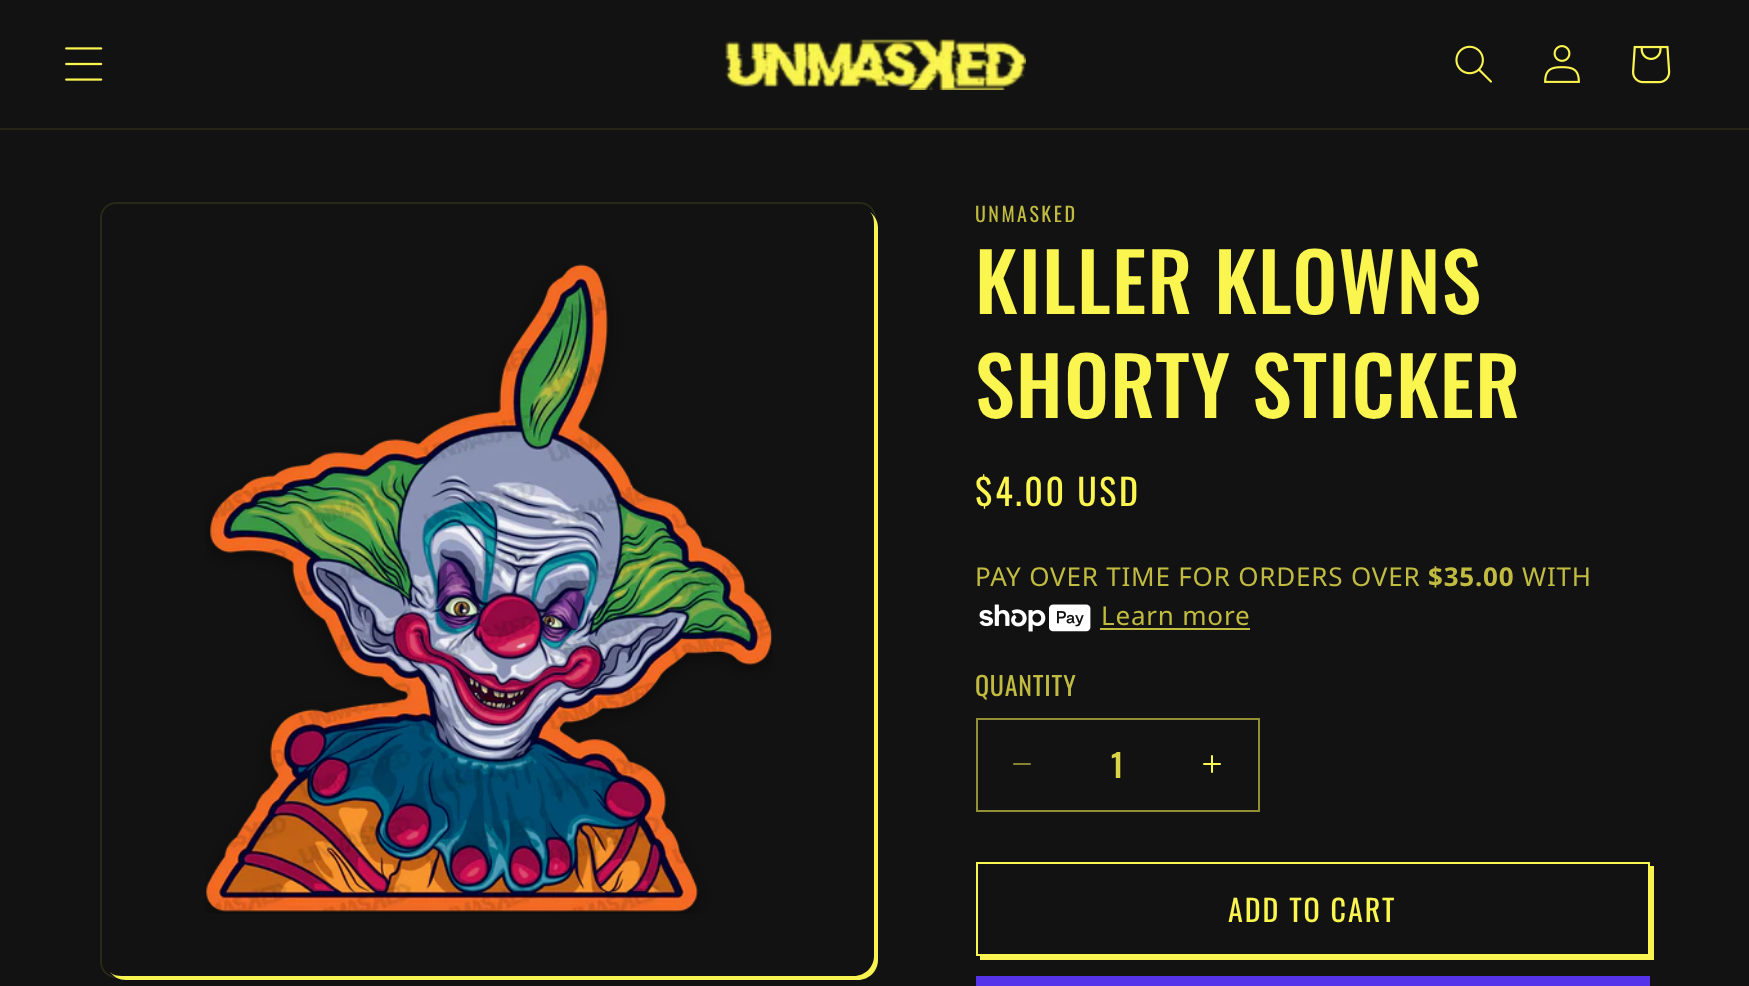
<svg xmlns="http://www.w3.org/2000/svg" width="1749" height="986">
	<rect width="100%" height="100%" fill="#121212" />
	<rect x="0" y="128" width="1749" height="2" fill="#252417" />
	<image x="65" y="47" width="38" height="34" href="assets/img1.png" />
	<image x="725" y="39" width="301" height="51" href="assets/img2.png" />
	<image x="1455" y="45" width="37" height="38" href="assets/img3.png" />
	<image x="1544" y="45" width="36" height="38" href="assets/img4.png" />
	<image x="1632" y="45" width="39" height="39" href="assets/img5.png" />
	<rect x="101" y="203" width="774" height="774" rx="15" fill="none" stroke="#292918" stroke-width="2" />
	<path d="M110 972C114 977 119 980 126 980H858C869 980 878 971 878 960V228C878 221 875 216 870 212C873 215 874 219 874 224V956C874 967 865 976 854 976H122C117 976 113 975 110 972Z" fill="#F8F350" />
	<image x="205" y="264" width="568" height="650" href="assets/img6.png" />
	<text x="975" y="222" font-family="Oswald" font-size="20" letter-spacing="2.5" fill="#C1BC41">UNMASKED</text>
	<g font-family="Oswald" font-size="80" font-weight="500" letter-spacing="1.25" fill="#FBF550">
		<text x="975" y="314">KILLER KLOWNS</text>
		<text x="975" y="418">SHORTY STICKER</text>
	</g>
	<text x="975" y="506" font-family="Oswald" font-size="36" letter-spacing="2.5" fill="#FBF550">$4.00 USD</text>
	<text x="975" y="586" font-family="Noto Sans" font-size="26" letter-spacing="0.8" fill="#C1BC41">PAY OVER TIME FOR ORDERS OVER</text>
	<text x="1428" y="586" font-family="Noto Sans" font-size="26" font-weight="700" letter-spacing="0.8" fill="#C1BC41">$35.00</text>
	<text x="1522" y="586" font-family="Noto Sans" font-size="26" letter-spacing="0.8" fill="#C1BC41">WITH</text>
	<image x="979" y="604" width="112" height="28" href="assets/img7.png" />
	<text x="1101" y="625" font-family="Noto Sans" font-size="26" letter-spacing="0.8" fill="#C1BC41">Learn more</text>
	<rect x="1100" y="628" width="150" height="2" fill="#C1BC41" />
	<text x="975" y="696" font-family="Oswald" font-size="26" letter-spacing="0.8" fill="#C1BC41">QUANTITY</text>
	<image x="1013" y="763" width="18" height="2" href="assets/img8.png" />
	<image x="1203" y="755" width="18" height="18" href="assets/img9.png" />
	<rect x="977" y="719" width="282" height="92" fill="none" stroke="#928F34" stroke-width="2" />
	<text x="1111" y="778" font-family="Oswald" font-size="32" font-weight="500" fill="#D8D347">1</text>
	<path d="M980 956V960H1654V866H1650V956Z" fill="#F8F350" />
	<rect x="977" y="863" width="672" height="92" fill="none" stroke="#FBF550" stroke-width="2" />
	<text x="1228" y="922" font-family="Oswald" font-size="30" letter-spacing="2" fill="#FBF550">ADD TO CART</text>
	<rect x="976" y="976" width="674" height="10" fill="#5433EB" />
</svg>
